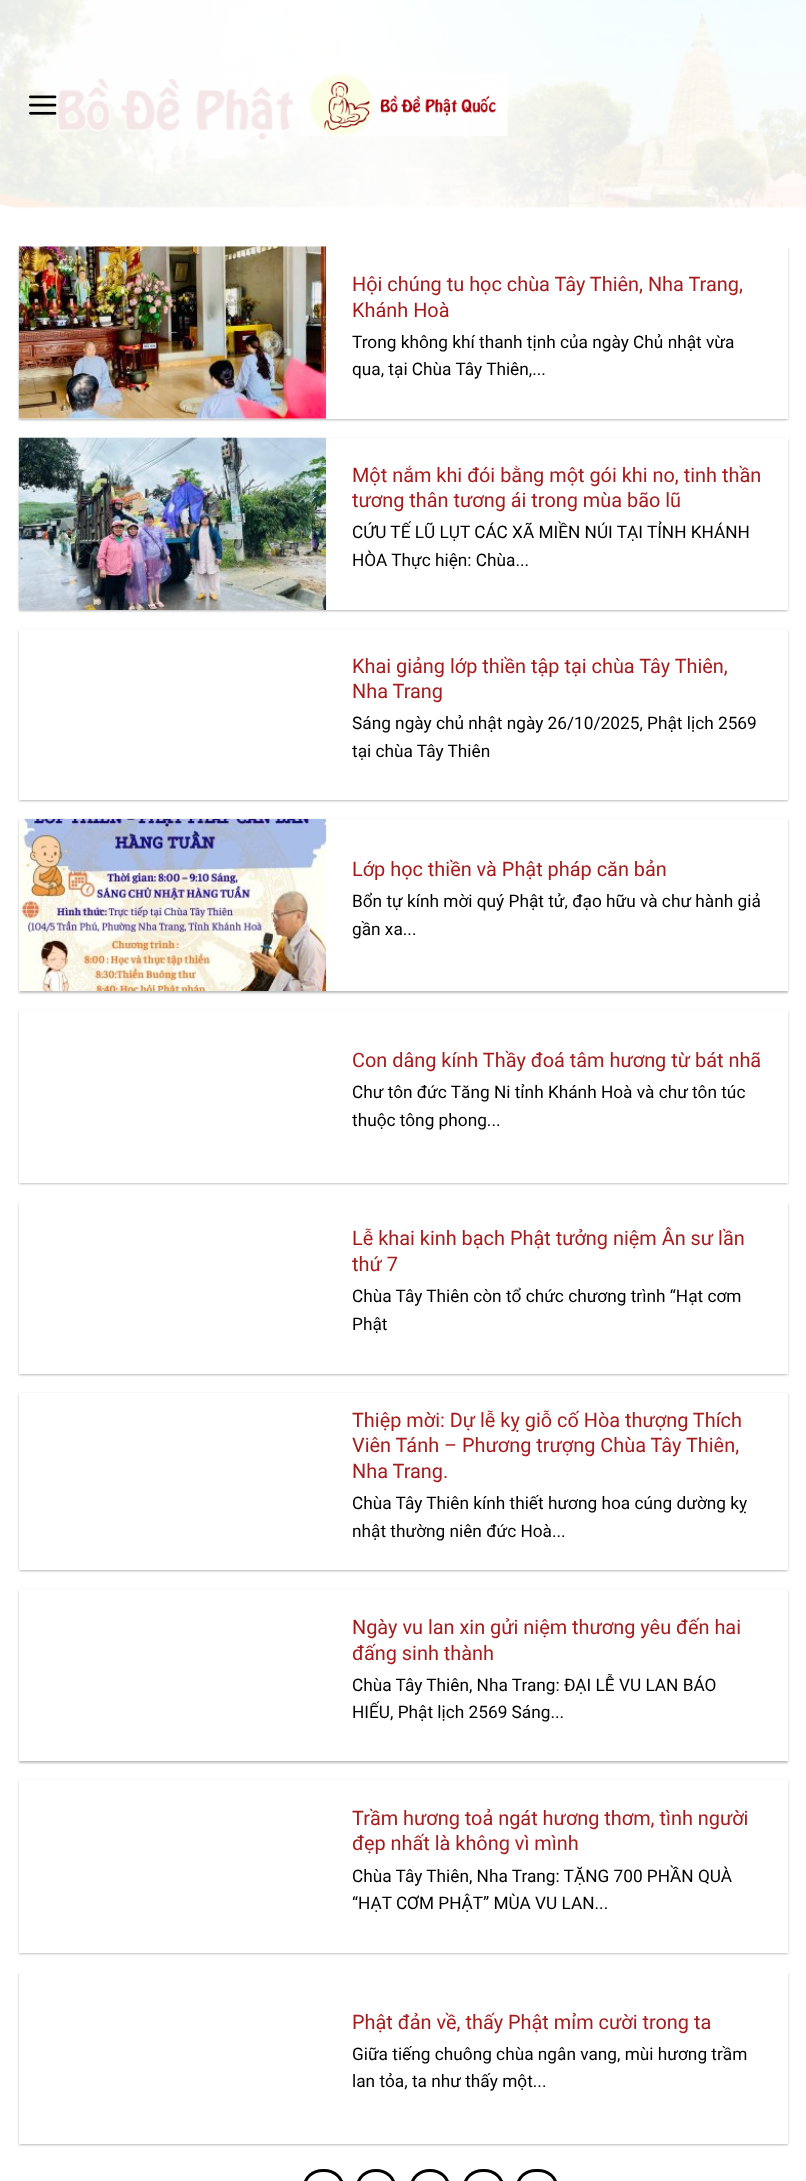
<svg xmlns="http://www.w3.org/2000/svg" width="806" height="2181">
	<rect width="100%" height="100%" fill="#FFFFFF" />
	<image x="0" y="0" width="806" height="209" href="assets/img1.png" />
	<image x="29" y="95" width="28" height="20" href="assets/img2.png" />
	<image x="300" y="73" width="208" height="63" href="assets/img3.png" />
	<rect x="19" y="248" width="769" height="172" fill="#000000" fill-opacity="0.24" filter="blur(1px)" />
	<rect x="21" y="250" width="764" height="168" fill="#000000" fill-opacity="0.12" filter="blur(2px)" />
	<rect x="19" y="246" width="769" height="173" fill="#FFFFFF" />
	<image x="18" y="246" width="309" height="173" href="assets/img4.png" />
	<g font-family="Roboto" font-size="19.9" fill="#A51C1D">
		<text x="352" y="291">Hội chúng tu học chùa Tây Thiên, Nha Trang,</text>
		<text x="352" y="317">Khánh Hoà</text>
	</g>
	<g font-family="Roboto" font-size="17.25" fill="#000000">
		<text x="352" y="348">Trong không khí thanh tịnh của ngày Chủ nhật vừa</text>
		<text x="352" y="375">qua, tại Chùa Tây Thiên,...</text>
	</g>
	<rect x="19" y="439" width="769" height="172" fill="#000000" fill-opacity="0.24" filter="blur(1px)" />
	<rect x="21" y="441" width="764" height="168" fill="#000000" fill-opacity="0.12" filter="blur(2px)" />
	<rect x="326" y="438" width="462" height="172" fill="#FFFFFF" />
	<image x="18" y="437" width="309" height="173" href="assets/img5.png" />
	<g font-family="Roboto" font-size="19.9" fill="#A51C1D">
		<text x="352" y="482">Một nắm khi đói bằng một gói khi no, tinh thần</text>
		<text x="352" y="507">tương thân tương ái trong mùa bão lũ</text>
	</g>
	<g font-family="Roboto" font-size="17.25" fill="#000000">
		<text x="352" y="538">CỨU TẾ LŨ LỤT CÁC XÃ MIỀN NÚI TẠI TỈNH KHÁNH</text>
		<text x="352" y="566">HÒA Thực hiện: Chùa...</text>
	</g>
	<rect x="19" y="630" width="769" height="171" fill="#000000" fill-opacity="0.24" filter="blur(1px)" />
	<rect x="21" y="633" width="764" height="166" fill="#000000" fill-opacity="0.12" filter="blur(2px)" />
	<rect x="19" y="629" width="769" height="171" fill="#FFFFFF" />
	<g font-family="Roboto" font-size="19.9" fill="#A51C1D">
		<text x="352" y="673">Khai giảng lớp thiền tập tại chùa Tây Thiên,</text>
		<text x="352" y="698">Nha Trang</text>
	</g>
	<g font-family="Roboto" font-size="17.25" fill="#000000">
		<text x="352" y="729">Sáng ngày chủ nhật ngày 26/10/2025, Phật lịch 2569</text>
		<text x="352" y="757">tại chùa Tây Thiên</text>
	</g>
	<rect x="19" y="820" width="769" height="173" fill="#000000" fill-opacity="0.24" filter="blur(1px)" />
	<rect x="21" y="823" width="764" height="167" fill="#000000" fill-opacity="0.12" filter="blur(2px)" />
	<rect x="326" y="819" width="462" height="172" fill="#FFFFFF" />
	<image x="19" y="818" width="308" height="174" href="assets/img6.png" />
	<text x="352" y="876" font-family="Roboto" font-size="19.9" fill="#A51C1D">Lớp học thiền và Phật pháp căn bản</text>
	<g font-family="Roboto" font-size="17.25" fill="#000000">
		<text x="352" y="907">Bổn tự kính mời quý Phật tử, đạo hữu và chư hành giả</text>
		<text x="352" y="935">gần xa...</text>
	</g>
	<rect x="19" y="1011" width="769" height="173" fill="#000000" fill-opacity="0.24" filter="blur(1px)" />
	<rect x="19" y="1010" width="769" height="173" fill="#FFFFFF" />
	<text x="352" y="1067" font-family="Roboto" font-size="19.9" fill="#A51C1D">Con dâng kính Thầy đoá tâm hương từ bát nhã</text>
	<g font-family="Roboto" font-size="17.25" fill="#000000">
		<text x="352" y="1098">Chư tôn đức Tăng Ni tỉnh Khánh Hoà và chư tôn túc</text>
		<text x="352" y="1126">thuộc tông phong...</text>
	</g>
	<rect x="19" y="1203" width="769" height="172" fill="#000000" fill-opacity="0.24" filter="blur(1px)" />
	<rect x="21" y="1205" width="764" height="168" fill="#000000" fill-opacity="0.12" filter="blur(2px)" />
	<rect x="19" y="1201" width="769" height="173" fill="#FFFFFF" />
	<g font-family="Roboto" font-size="19.9" fill="#A51C1D">
		<text x="352" y="1245">Lễ khai kinh bạch Phật tưởng niệm Ân sư lần</text>
		<text x="352" y="1271">thứ 7</text>
	</g>
	<g font-family="Roboto" font-size="17.25" fill="#000000">
		<text x="352" y="1302">Chùa Tây Thiên còn tổ chức chương trình “Hạt cơm</text>
		<text x="352" y="1330">Phật</text>
	</g>
	<rect x="19" y="1394" width="769" height="177" fill="#000000" fill-opacity="0.24" filter="blur(1px)" />
	<rect x="21" y="1396" width="764" height="173" fill="#000000" fill-opacity="0.12" filter="blur(2px)" />
	<rect x="19" y="1393" width="769" height="177" fill="#FFFFFF" />
	<g font-family="Roboto" font-size="19.9" fill="#A51C1D">
		<text x="352" y="1427">Thiệp mời: Dự lễ kỵ giỗ cố Hòa thượng Thích</text>
		<text x="352" y="1452">Viên Tánh – Phương trượng Chùa Tây Thiên,</text>
		<text x="352" y="1478">Nha Trang.</text>
	</g>
	<g font-family="Roboto" font-size="17.25" fill="#000000">
		<text x="352" y="1509">Chùa Tây Thiên kính thiết hương hoa cúng dường kỵ</text>
		<text x="352" y="1537">nhật thường niên đức Hoà...</text>
	</g>
	<rect x="19" y="1590" width="769" height="173" fill="#000000" fill-opacity="0.24" filter="blur(1px)" />
	<rect x="21" y="1593" width="764" height="167" fill="#000000" fill-opacity="0.12" filter="blur(2px)" />
	<rect x="19" y="1589" width="769" height="172" fill="#FFFFFF" />
	<g font-family="Roboto" font-size="19.9" fill="#A51C1D">
		<text x="352" y="1634">Ngày vu lan xin gửi niệm thương yêu đến hai</text>
		<text x="352" y="1660">đấng sinh thành</text>
	</g>
	<g font-family="Roboto" font-size="17.25" fill="#000000">
		<text x="352" y="1691">Chùa Tây Thiên, Nha Trang: ĐẠI LỄ VU LAN BÁO</text>
		<text x="352" y="1718">HIẾU, Phật lịch 2569 Sáng...</text>
	</g>
	<rect x="19" y="1781" width="769" height="173" fill="#000000" fill-opacity="0.24" filter="blur(1px)" />
	<rect x="19" y="1780" width="769" height="173" fill="#FFFFFF" />
	<g font-family="Roboto" font-size="19.9" fill="#A51C1D">
		<text x="352" y="1825">Trầm hương toả ngát hương thơm, tình người</text>
		<text x="352" y="1850">đẹp nhất là không vì mình</text>
	</g>
	<g font-family="Roboto" font-size="17.25" fill="#000000">
		<text x="352" y="1882">Chùa Tây Thiên, Nha Trang: TẶNG 700 PHẦN QUÀ</text>
		<text x="352" y="1909">“HẠT CƠM PHẬT” MÙA VU LAN...</text>
	</g>
	<rect x="19" y="1973" width="769" height="172" fill="#000000" fill-opacity="0.24" filter="blur(1px)" />
	<rect x="21" y="1975" width="764" height="168" fill="#000000" fill-opacity="0.12" filter="blur(2px)" />
	<rect x="19" y="1971" width="769" height="173" fill="#FFFFFF" />
	<text x="352" y="2029" font-family="Roboto" font-size="19.9" fill="#A51C1D">Phật đản về, thấy Phật mỉm cười trong ta</text>
	<g font-family="Roboto" font-size="17.25" fill="#000000">
		<text x="352" y="2060">Giữa tiếng chuông chùa ngân vang, mùi hương trầm</text>
		<text x="352" y="2087">lan tỏa, ta như thấy một...</text>
	</g>
	<rect x="304.5" y="2170.5" width="38" height="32" rx="18.5" fill="none" stroke="#000000" stroke-width="3" />
	<rect x="357.5" y="2170.5" width="37" height="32" rx="18.5" fill="none" stroke="#000000" stroke-width="3" />
	<rect x="411.5" y="2170.5" width="37" height="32" rx="18.5" fill="none" stroke="#000000" stroke-width="3" />
	<rect x="464.5" y="2170.5" width="38" height="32" rx="18.5" fill="none" stroke="#000000" stroke-width="3" />
	<rect x="517.5" y="2170.5" width="39" height="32" rx="18.5" fill="none" stroke="#000000" stroke-width="3" />
	<rect x="534" y="2180" width="1" height="1" fill="#F2F2F2" />
</svg>
